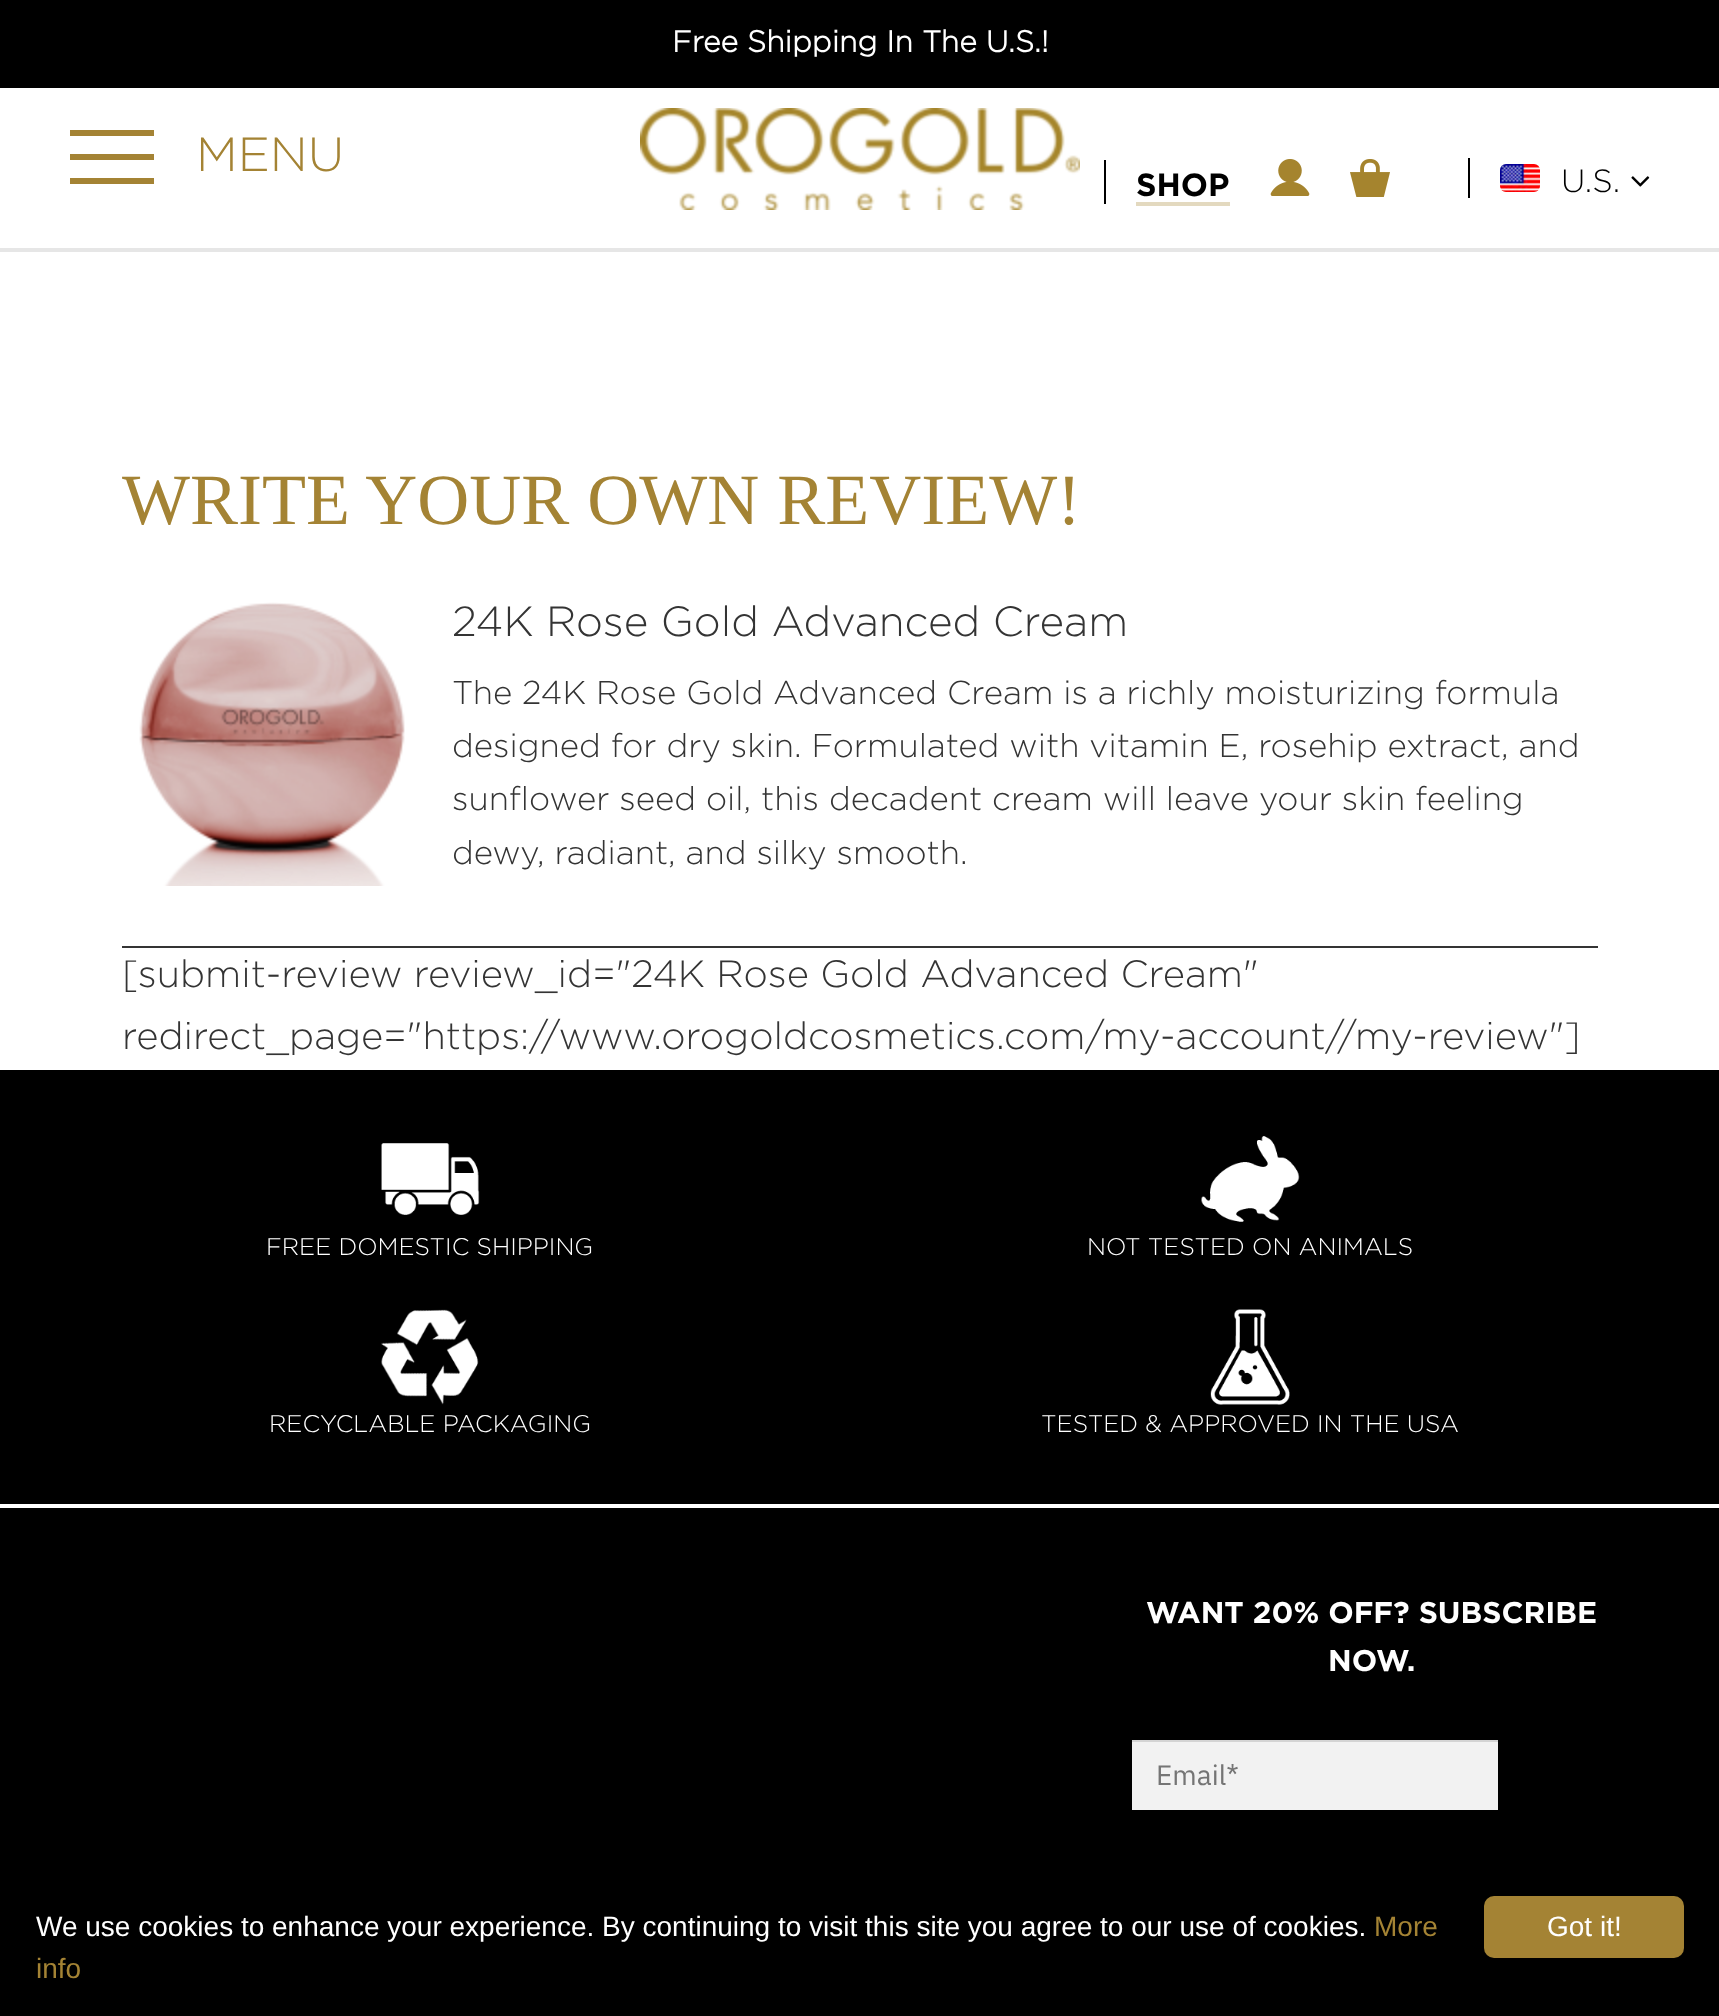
<svg xmlns="http://www.w3.org/2000/svg" width="1719" height="2016">
	<rect width="100%" height="100%" fill="#FFFFFF" />
	<rect x="0" y="248" width="1719" height="4" fill="#E6E6E6" />
	<rect x="0" y="0" width="1719" height="88" fill="#000000" />
	<text x="672" y="52" font-family="'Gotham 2'" font-size="30" font-weight="700" fill="#FFFFFF">Free Shipping In The U.S.!</text>
	<rect x="70" y="130" width="84" height="6" fill="#A48334" />
	<rect x="70" y="154" width="84" height="6" fill="#A48334" />
	<text x="196" y="171" font-family="Gotham" font-size="48" font-weight="300" fill="#A48334">MENU</text>
	<rect x="70" y="178" width="84" height="6" fill="#A48334" />
	<image x="640" y="108" width="440" height="102" href="assets/img1.png" />
	<rect x="1104" y="160" width="2" height="44" fill="#000000" />
	<text x="1136" y="196" font-family="Gotham" font-size="32" font-weight="700" fill="#000000">SHOP</text>
	<rect x="1136" y="202" width="94" height="4" fill="#E3D9BF" />
	<image x="1270" y="159" width="40" height="37" href="assets/img2.png" />
	<image x="1350" y="159" width="40" height="38" href="assets/img3.png" />
	<rect x="1468" y="158" width="2" height="40" fill="#000000" />
	<image x="1500" y="164" width="40" height="28" href="assets/img4.png" />
	<text x="1561" y="192" font-family="Gotham" font-size="32" font-weight="300" fill="#000000">U.S.</text>
	<image x="1631" y="176" width="19" height="11" href="assets/img5.png" />
	<text x="122" y="524" font-family="Liberation Serif" font-size="72" fill="#A48334">WRITE YOUR OWN REVIEW!</text>
	<rect x="122" y="946" width="1476" height="2" fill="#343434" />
	<image x="139" y="602" width="266" height="284" href="assets/img6.png" />
	<text x="452" y="636" font-family="Gotham" font-size="42" font-weight="300" fill="#343434">24K Rose Gold Advanced Cream</text>
	<g font-family="Gotham" font-size="33" font-weight="300" fill="#343434">
		<text x="452" y="704">The 24K Rose Gold Advanced Cream is a richly moisturizing formula</text>
		<text x="452" y="757">designed for dry skin. Formulated with vitamin E, rosehip extract, and</text>
		<text x="452" y="810">sunflower seed oil, this decadent cream will leave your skin feeling</text>
		<text x="452" y="864">dewy, radiant, and silky smooth.</text>
	</g>
	<g font-family="Gotham" font-size="38" font-weight="300" fill="#343434">
		<text x="122" y="987">[submit-review review_id="24K Rose Gold Advanced Cream"</text>
		<text x="122" y="1049">redirect_page="https://www.orogoldcosmetics.com/my-account//my-review"]</text>
	</g>
	<rect x="0" y="1070" width="1719" height="434" fill="#000000" />
	<image x="381" y="1143" width="99" height="72" href="assets/img7.png" />
	<text x="266" y="1255" font-family="Gotham" font-size="24" font-weight="300" fill="#FFFFFF">FREE DOMESTIC SHIPPING</text>
	<image x="1201" y="1136" width="99" height="86" href="assets/img8.png" />
	<text x="1087" y="1255" font-family="Gotham" font-size="24" font-weight="300" fill="#FFFFFF">NOT TESTED ON ANIMALS</text>
	<image x="381" y="1309" width="98" height="96" href="assets/img9.png" />
	<text x="269" y="1432" font-family="Gotham" font-size="24" font-weight="300" fill="#FFFFFF">RECYCLABLE PACKAGING</text>
	<image x="1210" y="1309" width="80" height="96" href="assets/img10.png" />
	<text x="1041" y="1432" font-family="Gotham" font-size="24" font-weight="300" fill="#FFFFFF">TESTED &amp; APPROVED IN THE USA</text>
	<rect x="0" y="1508" width="1719" height="508" fill="#000000" />
	<g font-family="Gotham" font-size="30" font-weight="700" fill="#FFFFFF">
		<text x="1146" y="1623">WANT 20% OFF? SUBSCRIBE</text>
		<text x="1328" y="1671">NOW.</text>
	</g>
	<rect x="1132" y="1742" width="366" height="68" fill="#F2F2F2" />
	<rect x="1132" y="1740" width="366" height="2" fill="#D4D4D4" />
	<text x="1156" y="1785" font-family="IBM Plex Sans" font-size="28" fill="#757575">Email*</text>
	<text x="36" y="1936" font-family="Liberation Sans" font-size="28" fill="#FFFFFF">We use cookies to enhance your experience. By continuing to visit this site you agree to our use of cookies.</text>
	<g font-family="Liberation Sans" font-size="28" fill="#A48334">
		<text x="1374" y="1936">More</text>
		<text x="36" y="1978">info</text>
	</g>
	<rect x="1484" y="1896" width="200" height="62" rx="10" fill="#A48334" />
	<text x="1547" y="1936" font-family="Liberation Sans" font-size="28" fill="#FFFFFF">Got it!</text>
</svg>
